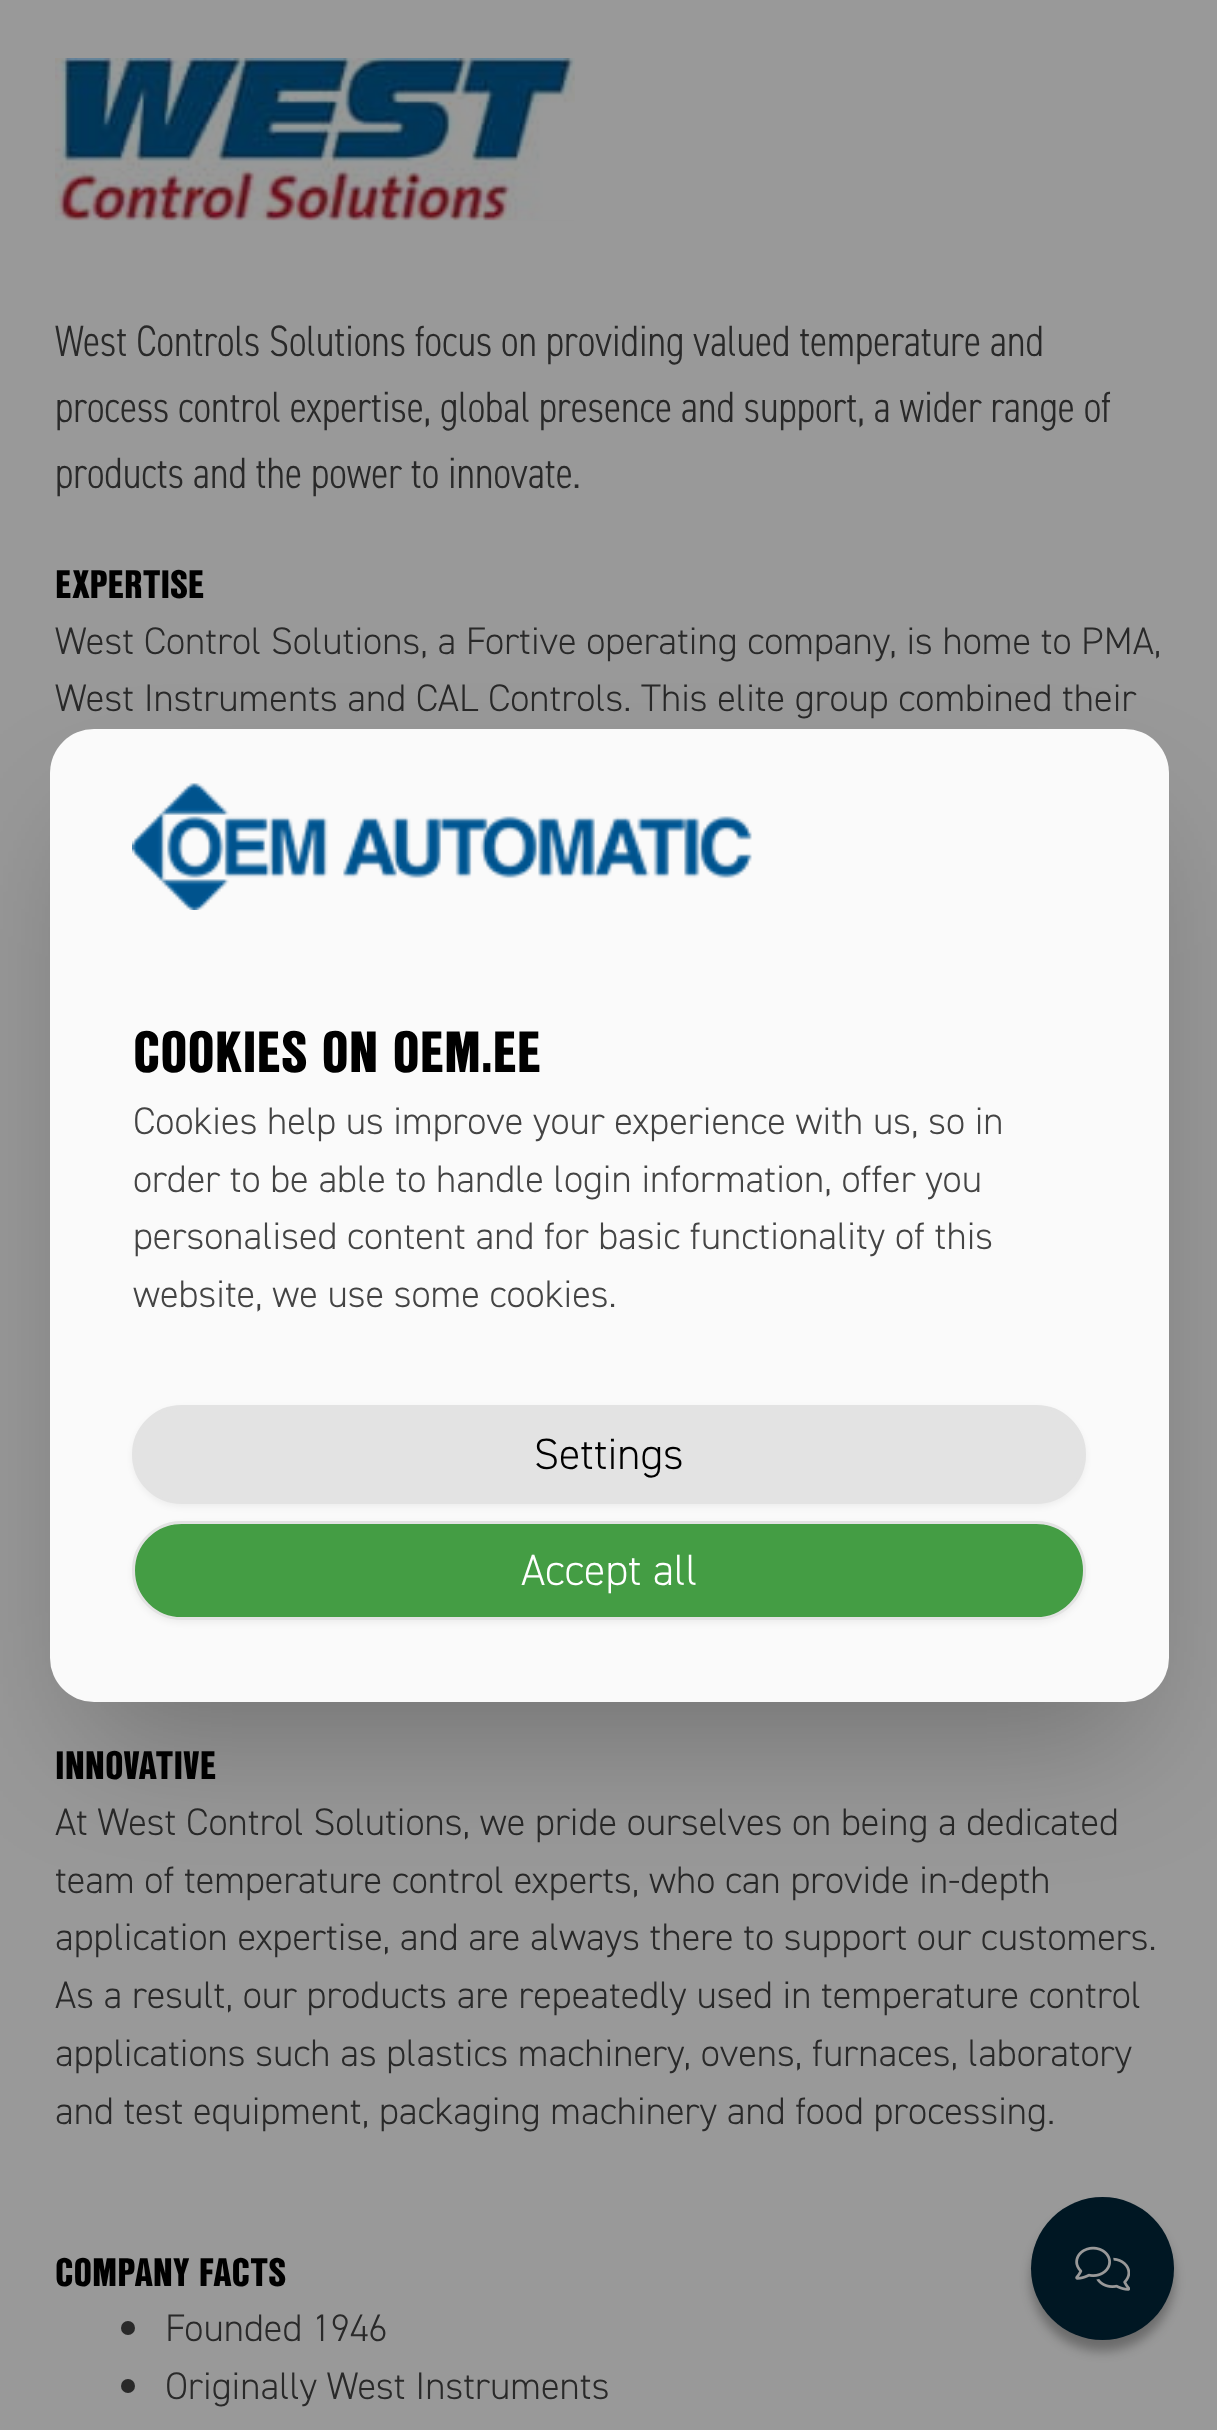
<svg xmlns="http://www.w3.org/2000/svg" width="1217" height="2430">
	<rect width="100%" height="100%" fill="#999999" />
	<image x="55" y="58" width="520" height="163" href="assets/img1.png" />
	<g font-family="'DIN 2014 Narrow'" font-size="44" font-weight="300" fill="#292929">
		<text x="55" y="356">West Controls Solutions focus on providing valued temperature and</text>
		<text x="55" y="422">process control expertise, global presence and support, a wider range of</text>
		<text x="55" y="488">products and the power to innovate.</text>
	</g>
	<text x="55" y="598" font-family="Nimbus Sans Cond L" font-size="38.5" font-weight="900" fill="#000000">EXPERTISE</text>
	<g font-family="'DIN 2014'" font-size="38.5" font-weight="300" fill="#292929">
		<text x="55" y="654">West Control Solutions, a Fortive operating company, is home to PMA,</text>
		<text x="55" y="711">West Instruments and CAL Controls. This elite group combined their</text>
	</g>
	<text x="55" y="1779" font-family="Nimbus Sans Cond L" font-size="38.5" font-weight="900" fill="#000000">INNOVATIVE</text>
	<g font-family="'DIN 2014'" font-size="38.5" font-weight="300" fill="#292929">
		<text x="55" y="1835">At West Control Solutions, we pride ourselves on being a dedicated</text>
		<text x="55" y="1893">team of temperature control experts, who can provide in-depth</text>
		<text x="55" y="1950">application expertise, and are always there to support our customers.</text>
		<text x="55" y="2008">As a result, our products are repeatedly used in temperature control</text>
		<text x="55" y="2066">applications such as plastics machinery, ovens, furnaces, laboratory</text>
		<text x="55" y="2124">and test equipment, packaging machinery and food processing.</text>
	</g>
	<text x="55" y="2286" font-family="Nimbus Sans Cond L" font-size="38.5" font-weight="900" fill="#000000">COMPANY FACTS</text>
	<circle cx="128" cy="2328" r="7" fill="#292929" />
	<text x="165" y="2341" font-family="'DIN 2014'" font-size="38.5" font-weight="300" fill="#292929">Founded 1946</text>
	<circle cx="128" cy="2386" r="7" fill="#292929" />
	<text x="165" y="2399" font-family="'DIN 2014'" font-size="38.5" font-weight="300" fill="#292929">Originally West Instruments</text>
	<rect x="83" y="831" width="1053" height="907" rx="11" fill="#000000" fill-opacity="0.25" filter="blur(69px)" />
	<rect x="50" y="729" width="1119" height="973" rx="44" fill="#FAFAFA" />
	<image x="132" y="783" width="620" height="127" href="assets/img2.png" />
	<text x="133" y="1072" font-family="Nimbus Sans Cond L" font-size="56.5" font-weight="900" fill="#000000">COOKIES ON OEM.EE</text>
	<g font-family="'DIN 2014'" font-size="38.5" font-weight="300" fill="#444444">
		<text x="133" y="1134">Cookies help us improve your experience with us, so in</text>
		<text x="133" y="1192">order to be able to handle login information, offer you</text>
		<text x="133" y="1249">personalised content and for basic functionality of this</text>
		<text x="133" y="1307">website, we use some cookies.</text>
	</g>
	<rect x="132" y="1408" width="954" height="99" rx="49.5" fill="#000000" fill-opacity="0.05" filter="blur(3px)" />
	<rect x="133.5" y="1406.5" width="951" height="96" rx="48" fill="#E3E3E3" stroke="#E3E3E3" stroke-width="3" />
	<text x="534" y="1469" font-family="'DIN 2014'" font-size="44" font-weight="300" fill="#000000">Settings</text>
	<rect x="132" y="1524" width="954" height="99" rx="49.5" fill="#000000" fill-opacity="0.05" filter="blur(3px)" />
	<rect x="133.5" y="1522.5" width="951" height="96" rx="48" fill="#449D44" stroke="#E3E3E3" stroke-width="3" />
	<text x="521" y="1585" font-family="'DIN 2014'" font-size="44" font-weight="300" fill="#FFFFFF">Accept all</text>
	<rect x="1031" y="2208" width="143" height="143" rx="71.5" fill="#000000" fill-opacity="0.3" filter="blur(5.5px)" />
	<circle cx="1102.5" cy="2268.5" r="71.5" fill="#001723" />
	<image x="1075" y="2246" width="55" height="45" href="assets/img3.png" />
</svg>
